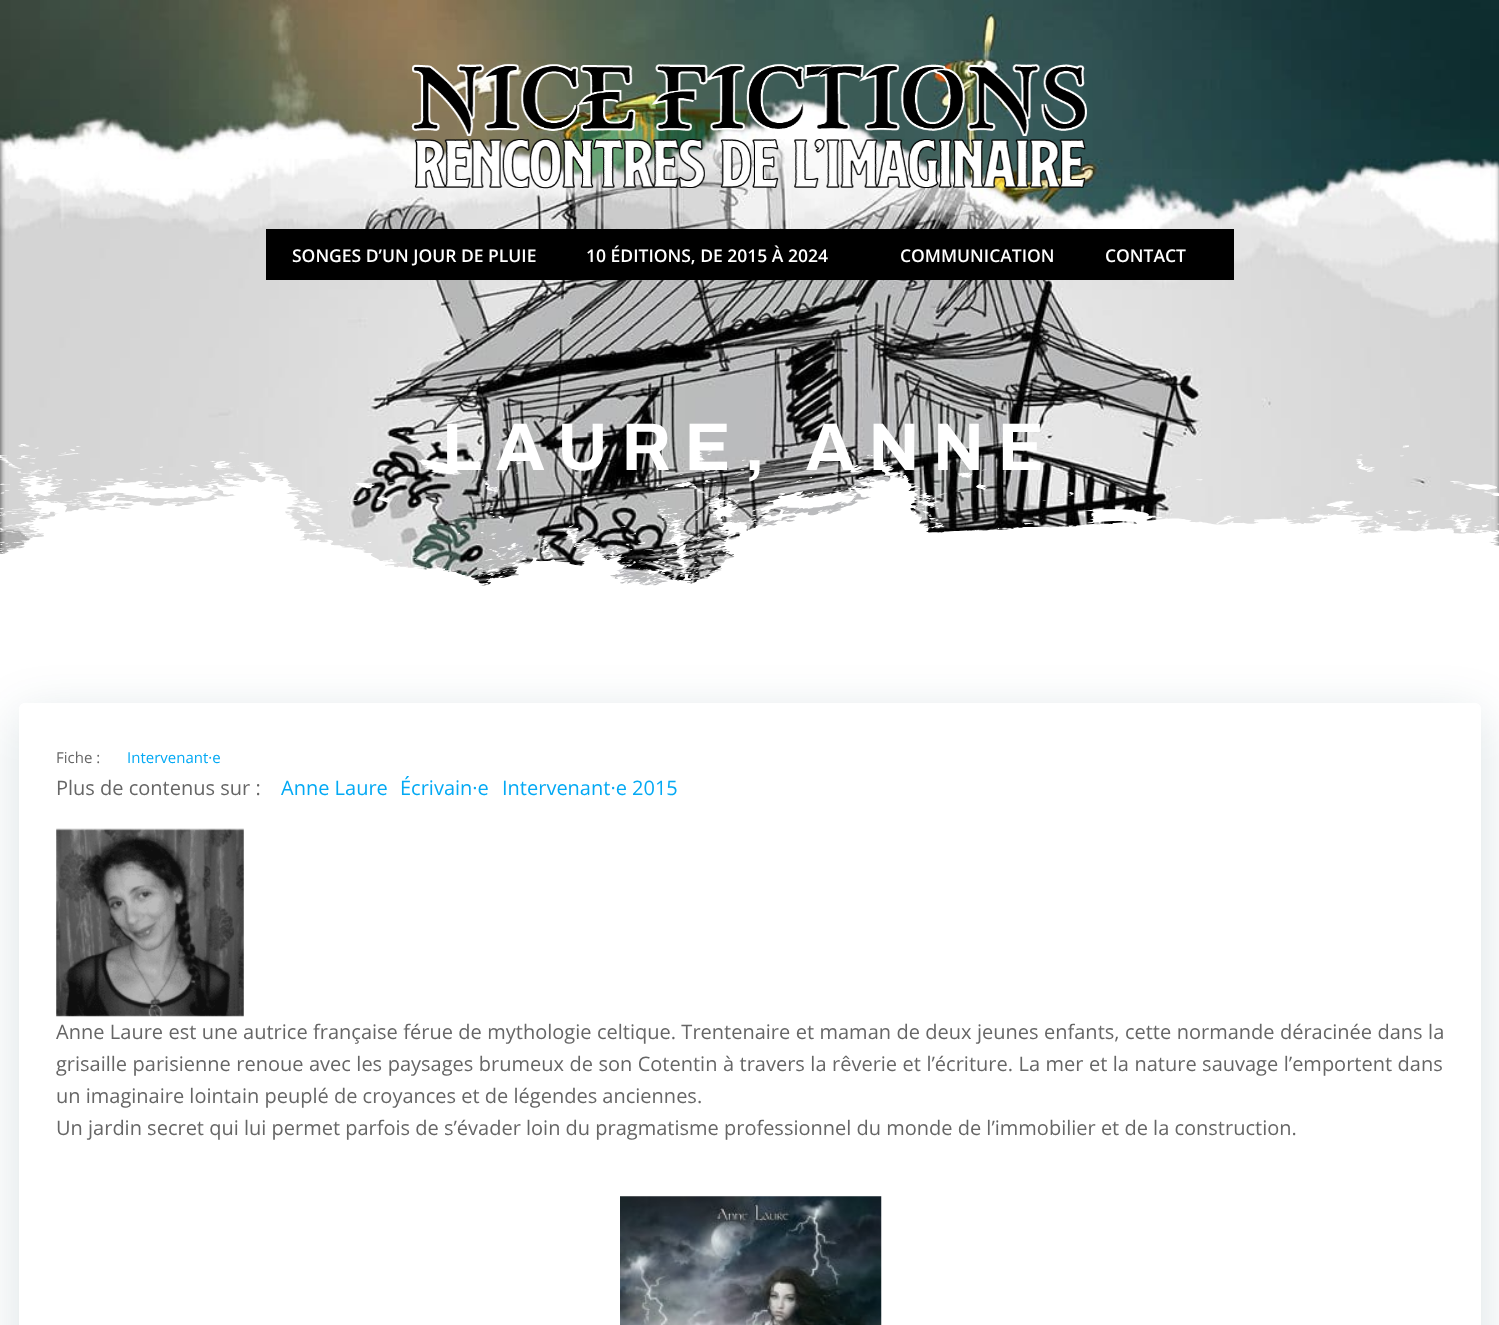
<svg xmlns="http://www.w3.org/2000/svg" width="1499" height="1325">
	<defs>
		<clipPath id="clip1"><path d="M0 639H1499V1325H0ZM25 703H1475C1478.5 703 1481 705.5 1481 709V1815C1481 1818.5 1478.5 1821 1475 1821H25C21.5 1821 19 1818.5 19 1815V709C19 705.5 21.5 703 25 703Z" clip-rule="evenodd" /></clipPath>
	</defs>
	<rect width="100%" height="100%" fill="#FFFFFF" />
	<image x="0" y="0" width="1499" height="586" href="assets/img2.png" />
	<image x="411" y="63" width="676" height="126" href="assets/img1.png" />
	<rect x="266" y="229" width="968" height="51" fill="#000000" />
	<g font-family="Open Sans" font-size="17.5" font-weight="600" fill="#FFFFFF">
		<text x="292" y="262">SONGES D’UN JOUR DE PLUIE</text>
		<text x="586" y="262">10 ÉDITIONS, DE 2015 À 2024</text>
		<text x="900" y="262">COMMUNICATION</text>
		<text x="1105" y="262">CONTACT</text>
	</g>
	<image x="0" y="444" width="1499" height="146" href="assets/img3.png" />
	<text x="442" y="470" font-family="Archivo" font-size="67.5" font-weight="700" letter-spacing="13.75" fill="#FFFFFF">LAURE, ANNE</text>
	<g clip-path="url(#clip1)">
		<rect x="19" y="715" width="1462" height="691" rx="6" fill="#01334A" fill-opacity="0.15" filter="blur(25px)" />
	</g>
	<text x="56" y="763" font-family="Open Sans" font-size="15" fill="#666666">Fiche :</text>
	<text x="127" y="763" font-family="Open Sans" font-size="15" fill="#03A9F4">Intervenant·e</text>
	<text x="56" y="795" font-family="Open Sans" font-size="20" fill="#666666">Plus de contenus sur :</text>
	<g font-family="Open Sans" font-size="20" fill="#03A9F4">
		<text x="281" y="795">Anne Laure</text>
		<text x="400" y="795">Écrivain·e</text>
		<text x="502" y="795">Intervenant·e 2015</text>
	</g>
	<image x="56" y="828" width="188" height="189" href="assets/img4.png" />
	<g font-family="Open Sans" font-size="20" fill="#666666">
		<text x="56" y="1039" word-spacing="0.25">Anne Laure est une autrice française férue de mythologie celtique. Trentenaire et maman de deux jeunes enfants, cette normande déracinée dans la</text>
		<text x="56" y="1071" word-spacing="0.3">grisaille parisienne renoue avec les paysages brumeux de son Cotentin à travers la rêverie et l’écriture. La mer et la nature sauvage l’emportent dans</text>
		<text x="56" y="1103">un imaginaire lointain peuplé de croyances et de légendes anciennes.</text>
		<text x="56" y="1135">Un jardin secret qui lui permet parfois de s’évader loin du pragmatisme professionnel du monde de l’immobilier et de la construction.</text>
	</g>
	<image x="620" y="1196" width="262" height="129" href="assets/img5.png" />
</svg>
